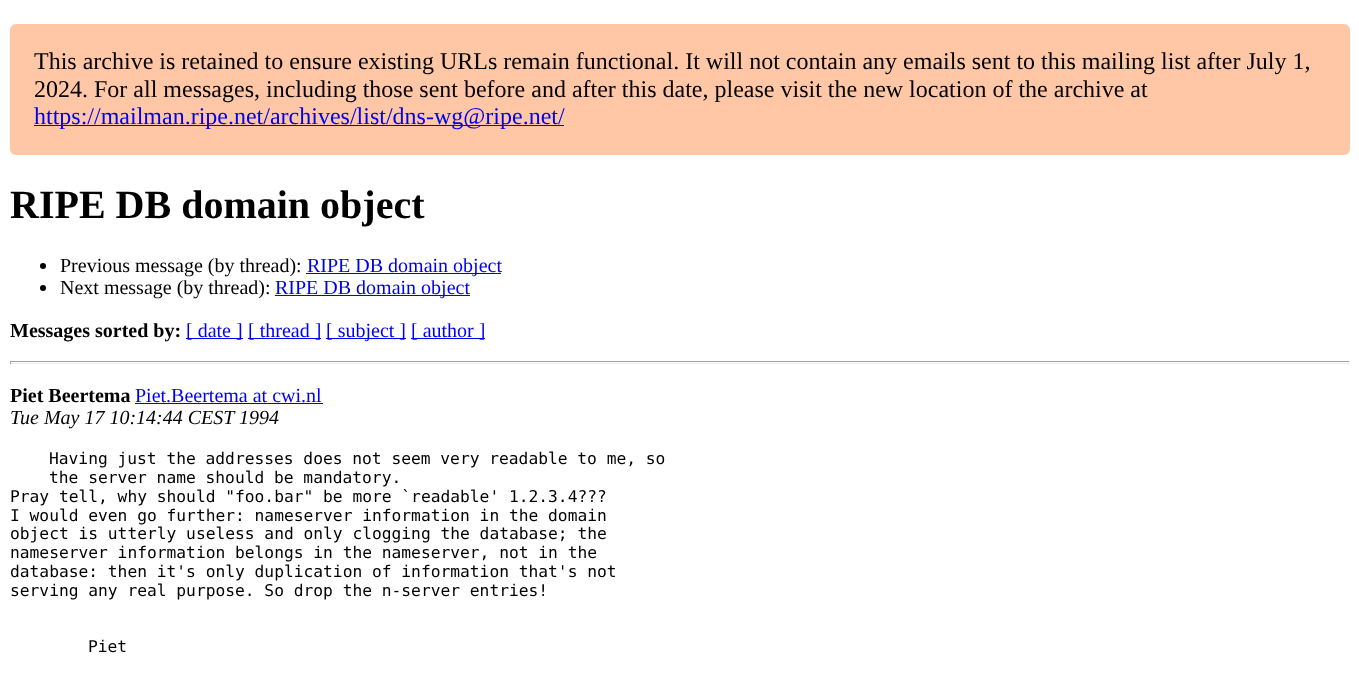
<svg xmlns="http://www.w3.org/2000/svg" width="1359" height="680">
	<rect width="100%" height="100%" fill="#FFFFFF" />
	<rect x="10" y="24" width="1340" height="131" rx="6" fill="#FFC7A6" />
	<g font-family="Liberation Serif" font-size="24" fill="#000000">
		<text x="34" y="69">This archive is retained to ensure existing URLs remain functional. It will not contain any emails sent to this mailing list after July 1,</text>
		<text x="34" y="97">2024. For all messages, including those sent before and after this date, please visit the new location of the archive at</text>
	</g>
	<rect x="34" y="125" width="530" height="1" fill="#0000EE" />
	<text x="34" y="124" font-family="Liberation Serif" font-size="24" fill="#0000EE">https://mailman.ripe.net/archives/list/dns-wg@ripe.net/</text>
	<text x="10" y="218" font-family="Liberation Serif" font-size="40" font-weight="700" fill="#000000">RIPE DB domain object</text>
	<circle cx="43" cy="266" r="3" fill="#000000" />
	<text x="60" y="272" font-family="Liberation Serif" font-size="20" fill="#000000">Previous message (by thread):</text>
	<rect x="306" y="273" width="195" height="1" fill="#0000EE" />
	<text x="307" y="272" font-family="Liberation Serif" font-size="20" fill="#0000EE">RIPE DB domain object</text>
	<circle cx="43" cy="288" r="3" fill="#000000" />
	<text x="60" y="294" font-family="Liberation Serif" font-size="20" fill="#000000">Next message (by thread):</text>
	<rect x="275" y="295" width="195" height="1" fill="#0000EE" />
	<text x="275" y="294" font-family="Liberation Serif" font-size="20" fill="#0000EE">RIPE DB domain object</text>
	<text x="10" y="337" font-family="Liberation Serif" font-size="20" font-weight="700" fill="#000000">Messages sorted by:</text>
	<rect x="186" y="338" width="57" height="1" fill="#0000EE" />
	<text x="186" y="337" font-family="Liberation Serif" font-size="20" fill="#0000EE">[ date ]</text>
	<rect x="248" y="338" width="73" height="1" fill="#0000EE" />
	<text x="248" y="337" font-family="Liberation Serif" font-size="20" fill="#0000EE">[ thread ]</text>
	<rect x="326" y="338" width="80" height="1" fill="#0000EE" />
	<text x="326" y="337" font-family="Liberation Serif" font-size="20" fill="#0000EE">[ subject ]</text>
	<rect x="411" y="338" width="74" height="1" fill="#0000EE" />
	<text x="411" y="337" font-family="Liberation Serif" font-size="20" fill="#0000EE">[ author ]</text>
	<rect x="10" y="361" width="1340" height="1" fill="#9F9F9F" />
	<rect x="1349" y="361" width="1" height="3" fill="#EEEEEE" />
	<rect x="10" y="363" width="1340" height="1" fill="#EEEEEE" />
	<rect x="10" y="361" width="1" height="3" fill="#9F9F9F" />
	<text x="10" y="402" font-family="Liberation Serif" font-size="20" font-weight="700" fill="#000000">Piet Beertema</text>
	<text x="135" y="402" font-family="Liberation Serif" font-size="20" fill="#0000EE">Piet.Beertema at cwi.nl</text>
	<rect x="135" y="403" width="188" height="1" fill="#0000EE" />
	<text x="10" y="424" font-family="Liberation Serif" font-size="20" font-style="italic" fill="#000000">Tue May 17 10:14:44 CEST 1994</text>
	<g font-family="DejaVu Sans Mono" font-size="16.25" fill="#000000">
		<text x="49" y="464">Having just the addresses does not seem very readable to me, so</text>
		<text x="49" y="483">the server name should be mandatory.</text>
		<text x="10" y="502">Pray tell, why should "foo.bar" be more `readable' 1.2.3.4???</text>
		<text x="10" y="521">I would even go further: nameserver information in the domain</text>
		<text x="10" y="539">object is utterly useless and only clogging the database; the</text>
		<text x="10" y="558">nameserver information belongs in the nameserver, not in the</text>
		<text x="10" y="577">database: then it's only duplication of information that's not</text>
		<text x="10" y="596">serving any real purpose. So drop the n-server entries!</text>
		<text x="88" y="652">Piet</text>
	</g>
</svg>
